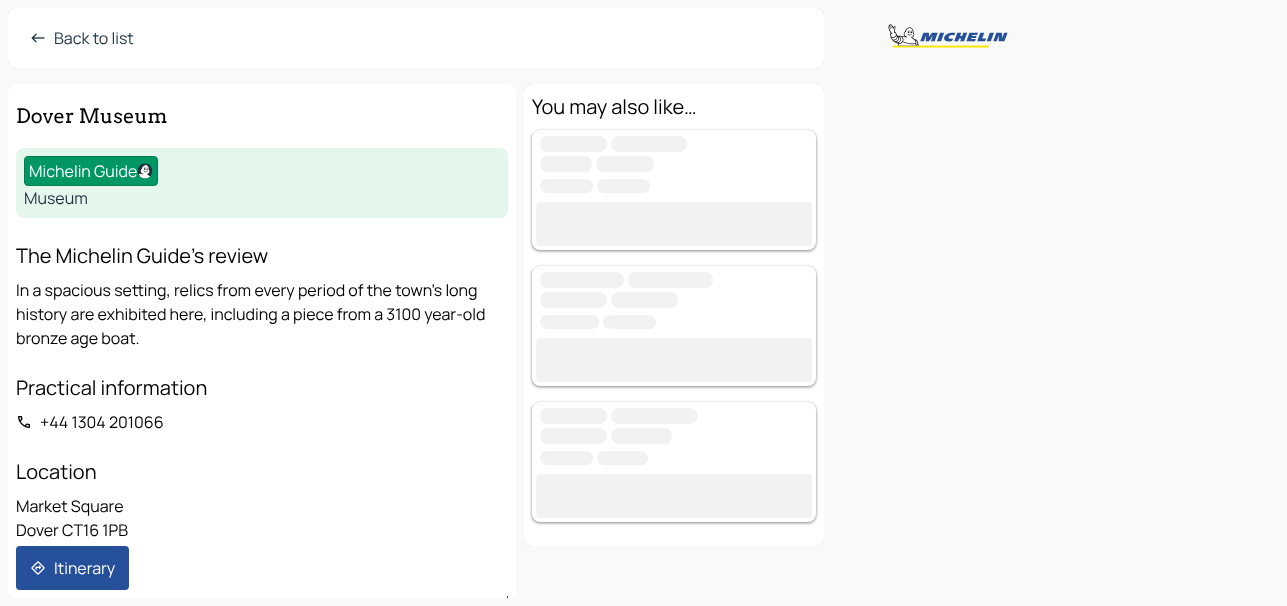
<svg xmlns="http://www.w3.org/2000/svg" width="1287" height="606">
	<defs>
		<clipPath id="clip1"><path d="M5 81H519V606H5ZM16 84H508C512.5 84 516 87.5 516 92V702C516 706.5 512.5 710 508 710H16C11.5 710 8 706.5 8 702V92C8 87.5 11.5 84 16 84Z" clip-rule="evenodd" /></clipPath>
	</defs>
	<rect width="100%" height="100%" fill="#F9F9F9" />
	<rect x="8" y="8" width="816" height="60" rx="8" fill="#0C1A4B" fill-opacity="0.24" filter="blur(0.5px)" />
	<rect x="8" y="8" width="816" height="60" rx="8" fill="#FFFFFF" />
	<image x="31" y="33" width="14" height="10" href="assets/img1.png" />
	<text x="54" y="44" font-family="Manrope" font-size="16" font-weight="200" fill="#1D3140">Back to list</text>
	<g clip-path="url(#clip1)">
		<rect x="8" y="84" width="508" height="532" rx="8" fill="#0C1A4B" fill-opacity="0.24" filter="blur(0.5px)" />
	</g>
	<path d="M16 84H508C512.5 84 516 87.5 516 92V598H16C11.5 598 8 594.5 8 590V92C8 87.5 11.5 84 16 84Z" fill="#FFFFFF" />
	<text x="16" y="123" font-family="Arvo" font-size="20" fill="#000000">Dover Museum</text>
	<rect x="16" y="148" width="492" height="70" rx="8" fill="#E3F7ED" />
	<rect x="24.5" y="156.5" width="133" height="29" rx="3.5" fill="#009764" stroke="#007E53" />
	<text x="29" y="177" font-family="Manrope" font-size="16" font-weight="200" fill="#FFFFFF">Michelin Guide</text>
	<image x="137" y="163" width="16" height="16" href="assets/img2.png" />
	<text x="24" y="204" font-family="Manrope" font-size="16" font-weight="200" fill="#1D3140">Museum</text>
	<text x="16" y="263" font-family="Manrope" font-size="20" font-weight="200" fill="#000000">The Michelin Guide's review</text>
	<g font-family="Manrope" font-size="16" font-weight="200" fill="#000000">
		<text x="16" y="296">In a spacious setting, relics from every period of the town's long</text>
		<text x="16" y="320">history are exhibited here, including a piece from a 3100 year-old</text>
		<text x="16" y="344">bronze age boat.</text>
	</g>
	<text x="16" y="395" font-family="Manrope" font-size="20" font-weight="200" fill="#000000">Practical information</text>
	<image x="18" y="416" width="12" height="12" href="assets/img3.png" />
	<text x="40" y="428" font-family="Manrope" font-size="16" font-weight="200" fill="#000000">+44 1304 201066</text>
	<text x="16" y="479" font-family="Manrope" font-size="20" font-weight="200" fill="#000000">Location</text>
	<g font-family="Manrope" font-size="16" font-weight="200" fill="#000000">
		<text x="16" y="512">Market Square</text>
		<text x="16" y="536">Dover CT16 1PB</text>
	</g>
	<path d="M20 566C18 566 16 568 16 570V598H17V570C17 568 18 567 20 567H504C506 567 507 568 507 570V598H508V570C508 568 506 566 504 566Z" fill="#1D3140" />
	<path d="M8 538H516V582C516 591 509 598 500 598H24C15 598 8 591 8 582Z" fill="#FFFFFF" />
	<rect x="8" y="538" width="129" height="60" rx="8" fill="#FFFFFF" />
	<rect x="16" y="546" width="113" height="44" rx="4" fill="#27509B" />
	<image x="31" y="561" width="14" height="14" href="assets/img4.png" />
	<text x="54" y="574" font-family="Manrope" font-size="16" font-weight="200" fill="#FFFFFF">Itinerary</text>
	<rect x="524" y="84" width="300" height="462" rx="8" fill="#0C1A4B" fill-opacity="0.24" filter="blur(0.5px)" />
	<rect x="524" y="84" width="300" height="462" rx="8" fill="#FFFFFF" />
	<text x="532" y="114" font-family="Manrope" font-size="20" font-weight="200" fill="#000000">You may also like…</text>
	<rect x="532" y="131" width="284" height="120" rx="8" fill="#000000" fill-opacity="0.3" filter="blur(1px)" />
	<rect x="531" y="130" width="286" height="122" rx="9" fill="#000000" fill-opacity="0.15" filter="blur(1.5px)" />
	<rect x="532" y="130" width="284" height="120" rx="8" fill="#FFFFFF" />
	<rect x="540" y="136" width="67" height="16" rx="8" fill="#F2F2F2" />
	<rect x="611" y="136" width="76" height="16" rx="8" fill="#F2F2F2" />
	<rect x="540" y="156" width="52" height="16" rx="8" fill="#F2F2F2" />
	<rect x="596" y="156" width="58" height="16" rx="8" fill="#F2F2F2" />
	<rect x="540" y="179" width="53" height="14" rx="7" fill="#F2F2F2" />
	<rect x="597" y="179" width="53" height="14" rx="7" fill="#F2F2F2" />
	<rect x="536" y="202" width="276" height="44" rx="4" fill="#F2F2F2" />
	<rect x="532" y="267" width="284" height="120" rx="8" fill="#000000" fill-opacity="0.3" filter="blur(1px)" />
	<rect x="531" y="266" width="286" height="122" rx="9" fill="#000000" fill-opacity="0.15" filter="blur(1.5px)" />
	<rect x="532" y="266" width="284" height="120" rx="8" fill="#FFFFFF" />
	<rect x="540" y="272" width="84" height="16" rx="8" fill="#F2F2F2" />
	<rect x="628" y="272" width="85" height="16" rx="8" fill="#F2F2F2" />
	<rect x="540" y="292" width="67" height="16" rx="8" fill="#F2F2F2" />
	<rect x="611" y="292" width="67" height="16" rx="8" fill="#F2F2F2" />
	<rect x="540" y="315" width="59" height="14" rx="7" fill="#F2F2F2" />
	<rect x="603" y="315" width="53" height="14" rx="7" fill="#F2F2F2" />
	<rect x="536" y="338" width="276" height="44" rx="4" fill="#F2F2F2" />
	<rect x="532" y="403" width="284" height="120" rx="8" fill="#000000" fill-opacity="0.3" filter="blur(1px)" />
	<rect x="531" y="402" width="286" height="122" rx="9" fill="#000000" fill-opacity="0.15" filter="blur(1.5px)" />
	<rect x="532" y="402" width="284" height="120" rx="8" fill="#FFFFFF" />
	<rect x="540" y="408" width="67" height="16" rx="8" fill="#F2F2F2" />
	<rect x="611" y="408" width="87" height="16" rx="8" fill="#F2F2F2" />
	<rect x="540" y="428" width="67" height="16" rx="8" fill="#F2F2F2" />
	<rect x="611" y="428" width="61" height="16" rx="8" fill="#F2F2F2" />
	<rect x="540" y="451" width="53" height="14" rx="7" fill="#F2F2F2" />
	<rect x="597" y="451" width="51" height="14" rx="7" fill="#F2F2F2" />
	<rect x="536" y="474" width="276" height="44" rx="4" fill="#F2F2F2" />
	<image x="888" y="24" width="120" height="24" href="assets/img5.png" />
</svg>
